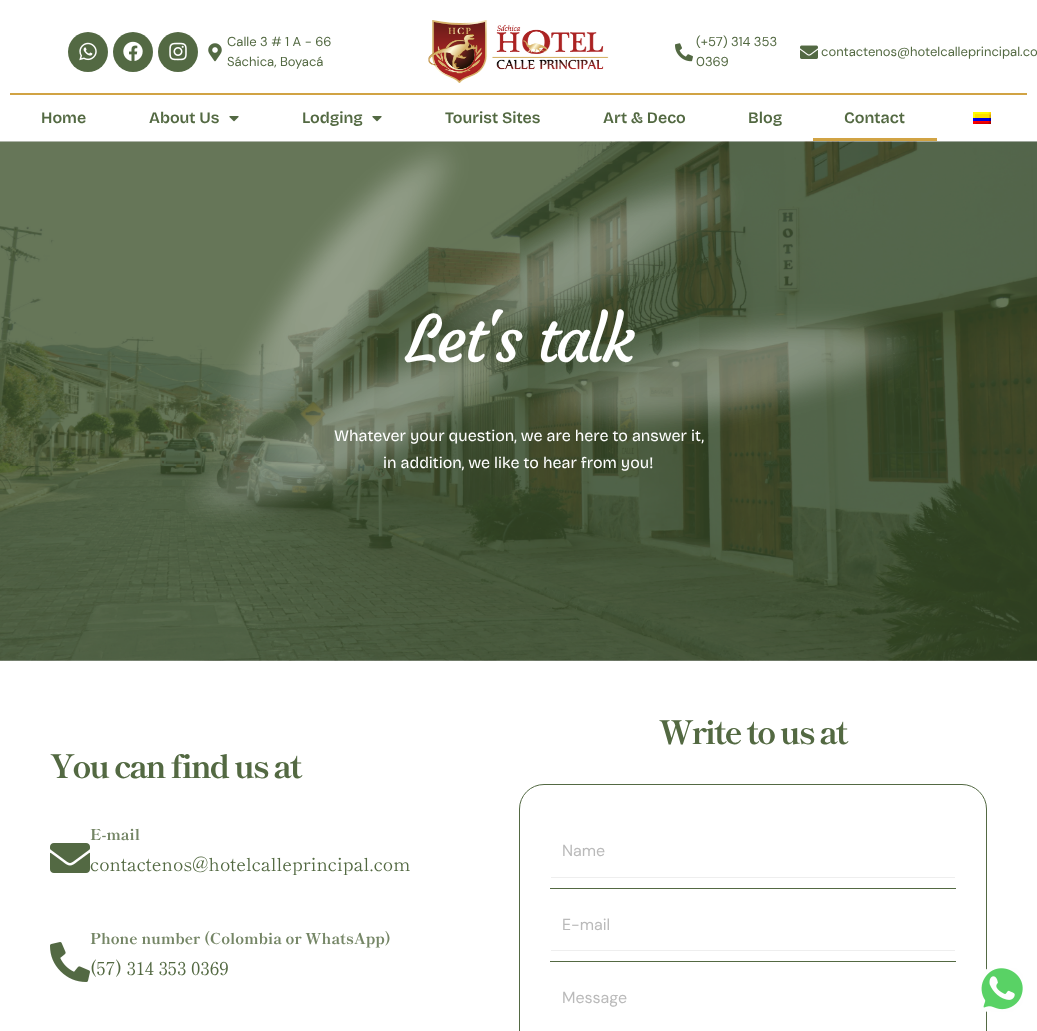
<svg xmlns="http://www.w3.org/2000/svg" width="1037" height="1031">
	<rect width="100%" height="100%" fill="#FFFFFF" />
	<rect x="0" y="141" width="1037" height="520" fill="#E6E6E6" />
	<rect x="10" y="93" width="1017" height="2" fill="#D1A344" />
	<circle cx="88" cy="52" r="20" fill="#536943" />
	<image x="79" y="42" width="18" height="19" href="assets/img1.png" />
	<circle cx="133" cy="52" r="20" fill="#536943" />
	<image x="123" y="41" width="20" height="20" href="assets/img2.png" />
	<circle cx="178" cy="52" r="20" fill="#536943" />
	<image x="169" y="42" width="18" height="19" href="assets/img3.png" />
	<image x="208" y="43" width="14" height="19" href="assets/img4.png" />
	<g font-family="DM Sans" font-size="13" fill="#536942">
		<text x="227" y="46">Calle 3 # 1 A - 66</text>
		<text x="227" y="66">Sáchica, Boyacá</text>
	</g>
	<image x="428" y="20" width="181" height="63" href="assets/img5.png" />
	<image x="675" y="43" width="18" height="19" href="assets/img6.png" />
	<g font-family="DM Sans" font-size="13" fill="#536942">
		<text x="696" y="46">(+57) 314 353</text>
		<text x="696" y="66">0369</text>
	</g>
	<image x="800" y="45" width="18" height="14" href="assets/img7.png" />
	<text x="821" y="56" font-family="DM Sans" font-size="13" fill="#536942">contactenos@hotelcalleprincipal.co</text>
	<g font-family="Bricolage Grotesque" font-size="16" font-weight="600" fill="#536942">
		<text x="41" y="123">Home</text>
		<text x="149" y="123">About Us</text>
	</g>
	<image x="229" y="116" width="10" height="6" href="assets/img8.png" />
	<text x="302" y="123" font-family="Bricolage Grotesque" font-size="16" font-weight="600" fill="#536942">Lodging</text>
	<image x="372" y="116" width="10" height="6" href="assets/img8.png" />
	<g font-family="Bricolage Grotesque" font-size="16" font-weight="600" fill="#536942">
		<text x="445" y="123">Tourist Sites</text>
		<text x="603" y="123">Art &amp; Deco</text>
		<text x="748" y="123">Blog</text>
		<text x="844" y="123">Contact</text>
	</g>
	<rect x="813" y="138" width="124" height="3" fill="#D1A344" />
	<image x="973" y="112" width="18" height="12" href="assets/img9.png" />
	<image x="0" y="141" width="1037" height="520" href="assets/img10.png" />
	<image x="185" y="143" width="732" height="379" href="assets/img11.png" />
	<text x="406" y="362" font-family="Courgette" font-size="64" letter-spacing="-3" fill="#FFFFFF">Let's talk</text>
	<g font-family="Bricolage Grotesque" font-size="16" fill="#FFFFFF">
		<text x="334" y="441">Whatever your question, we are here to answer it,</text>
		<text x="383" y="468">in addition, we like to hear from you!</text>
	</g>
	<text x="50" y="778" font-family="Shippori Mincho" font-size="32" font-weight="800" letter-spacing="-2" fill="#536942">You can find us at</text>
	<image x="50" y="843" width="40" height="30" href="assets/img12.png" />
	<text x="90" y="840" font-family="Shippori Mincho" font-size="15" font-weight="800" fill="#758666">E-mail</text>
	<text x="90" y="871" font-family="Shippori Mincho" font-size="18" fill="#536942">contactenos@hotelcalleprincipal.com</text>
	<image x="50" y="942" width="40" height="40" href="assets/img13.png" />
	<text x="90" y="944" font-family="Shippori Mincho" font-size="15" font-weight="800" fill="#758666">Phone number (Colombia or WhatsApp)</text>
	<text x="90" y="975" font-family="Shippori Mincho" font-size="18" fill="#536942">(57) 314 353 0369</text>
	<text x="659" y="744" font-family="Shippori Mincho" font-size="32" font-weight="800" letter-spacing="-2" fill="#536942">Write to us at</text>
	<rect x="519.5" y="784.5" width="467" height="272" rx="24.5" fill="none" stroke="#536943" />
	<rect x="550" y="888" width="406" height="1" fill="#536942" />
	<rect x="551" y="877" width="404" height="1" fill="#EEEEEE" />
	<text x="562" y="856" font-family="DM Sans" font-size="16" fill="#BABABA">Name</text>
	<rect x="550" y="961" width="406" height="1" fill="#536942" />
	<rect x="551" y="950" width="404" height="1" fill="#EEEEEE" />
	<g font-family="DM Sans" font-size="16" fill="#BABABA">
		<text x="562" y="930">E-mail</text>
		<text x="562" y="1003">Message</text>
	</g>
	<image x="981" y="968" width="42" height="44" href="assets/img14.png" />
</svg>
